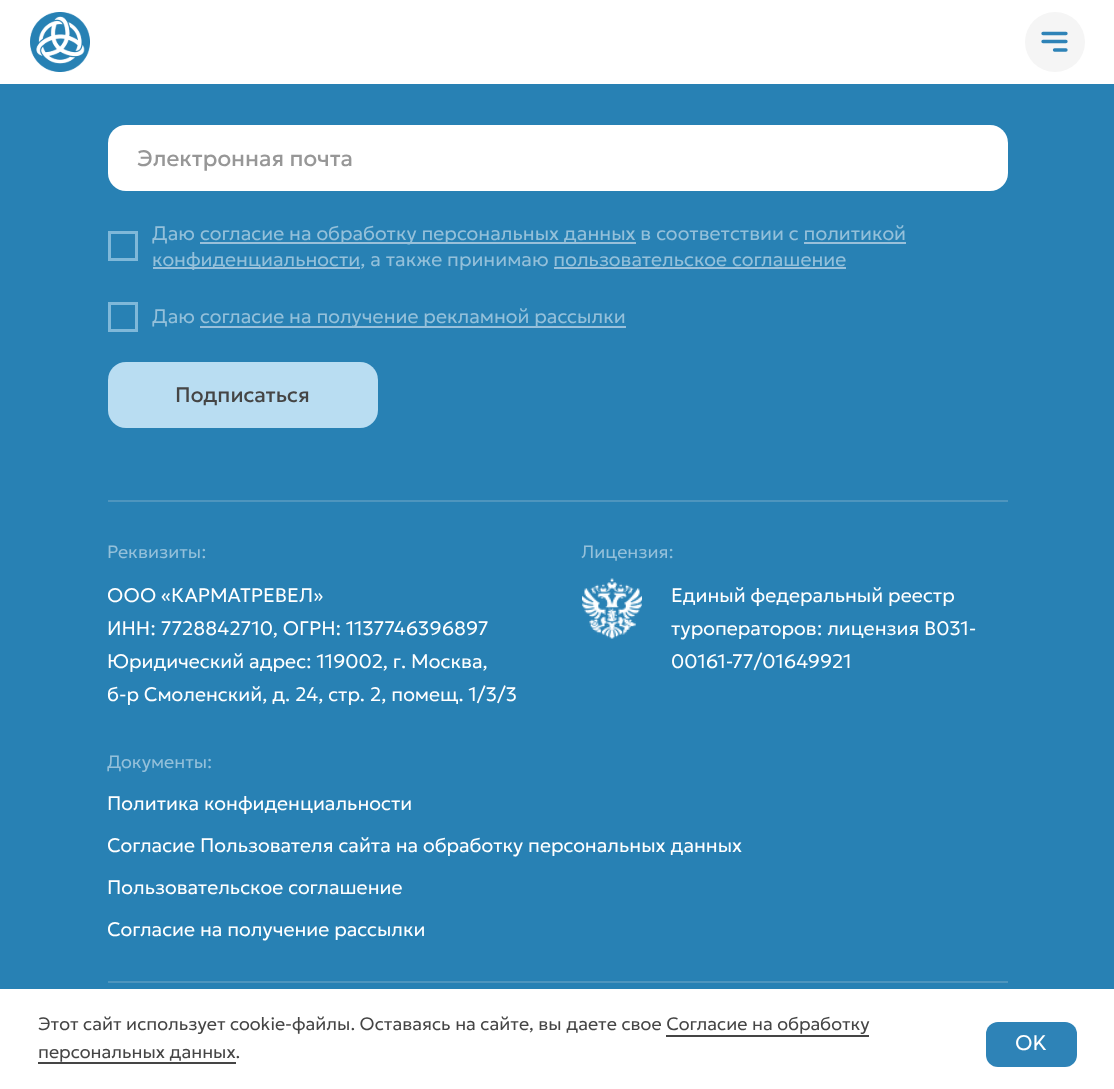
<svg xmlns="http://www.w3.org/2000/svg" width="1114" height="1089">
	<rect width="100%" height="100%" fill="#2881B4" />
	<rect x="0" y="0" width="1114" height="84" fill="#FFFFFF" />
	<image x="30" y="12" width="60" height="60" href="assets/img1.png" />
	<circle cx="1055" cy="42" r="30" fill="#F5F5F5" />
	<path d="M1054.5 50H1066M1043 41.5H1066M1043 33.5H1066" fill="none" stroke="#2E83B7" stroke-width="3.3" stroke-linecap="round" stroke-linejoin="round" />
	<rect x="108" y="125" width="900" height="66" rx="18" fill="#FFFFFF" />
	<text x="137" y="166" font-family="Geologica" font-size="22.5" fill="#979797">Электронная почта</text>
	<rect x="109.5" y="232.5" width="27" height="27" fill="none" stroke="#7FB8D9" stroke-width="3" />
	<text x="152" y="240" font-family="Geologica" font-size="19.5" font-weight="300" fill="#94C0DA">Даю</text>
	<rect x="200" y="242" width="436" height="2" fill="#99C0DA" />
	<text x="200" y="240" font-family="Geologica" font-size="19.5" font-weight="300" fill="#94C0DA">согласие на обработку персональных данных в соответствии с политикой</text>
	<rect x="153" y="267" width="207" height="2" fill="#99C0DA" />
	<text x="152" y="266" font-family="Geologica" font-size="19.5" font-weight="300" fill="#94C0DA">конфиденциальности, а также принимаю пользовательское соглашение</text>
	<rect x="804" y="242" width="102" height="2" fill="#99C0DA" />
	<rect x="554" y="267" width="292" height="2" fill="#99C0DA" />
	<rect x="109.5" y="303.5" width="27" height="27" fill="none" stroke="#7FB8D9" stroke-width="3" />
	<text x="152" y="323" font-family="Geologica" font-size="19.5" font-weight="300" fill="#94C0DA">Даю</text>
	<rect x="200" y="326" width="426" height="2" fill="#99C0DA" />
	<text x="200" y="323" font-family="Geologica" font-size="19.5" font-weight="300" fill="#94C0DA">согласие на получение рекламной рассылки</text>
	<rect x="108" y="362" width="270" height="66" rx="18" fill="#B9DDF2" />
	<text x="175" y="402" font-family="Geologica" font-size="21" fill="#454545">Подписаться</text>
	<rect x="108" y="500" width="900" height="2" fill="#4E95BE" />
	<text x="107" y="558" font-family="Geologica" font-size="18" font-weight="300" fill="#94C0DA">Реквизиты:</text>
	<g font-family="Geologica" font-size="19.5" font-weight="300" fill="#FFFFFF">
		<text x="107" y="602">ООО «КАРМАТРЕВЕЛ»</text>
		<text x="107" y="635">ИНН: 7728842710, ОГРН: 1137746396897</text>
		<text x="107" y="668">Юридический адрес: 119002, г. Москва,</text>
		<text x="107" y="701">б-р Смоленский, д. 24, стр. 2, помещ. 1/3/3</text>
	</g>
	<text x="581" y="558" font-family="Geologica" font-size="18" font-weight="300" fill="#94C0DA">Лицензия:</text>
	<image x="582" y="578" width="60" height="61" href="assets/img2.png" />
	<g font-family="Geologica" font-size="19.5" font-weight="300" fill="#FFFFFF">
		<text x="671" y="602">Единый федеральный реестр</text>
		<text x="671" y="635">туроператоров: лицензия В031-</text>
		<text x="671" y="668">00161-77/01649921</text>
	</g>
	<text x="107" y="768" font-family="Geologica" font-size="18" font-weight="300" fill="#94C0DA">Документы:</text>
	<g font-family="Geologica" font-size="19.5" font-weight="300" fill="#FFFFFF">
		<text x="107" y="810">Политика конфиденциальности</text>
		<text x="107" y="852">Согласие Пользователя сайта на обработку персональных данных</text>
		<text x="107" y="894">Пользовательское соглашение</text>
		<text x="107" y="936">Согласие на получение рассылки</text>
	</g>
	<rect x="108" y="981" width="900" height="2" fill="#4E95BE" />
	<rect x="0" y="989" width="1114" height="100" fill="#FFFFFF" />
	<g font-family="Geologica" font-size="18" font-weight="300" fill="#454545">
		<text x="38" y="1030">Этот сайт использует cookie-файлы. Оставаясь на сайте, вы даете свое Согласие на обработку</text>
		<text x="38" y="1058">персональных данных.</text>
	</g>
	<rect x="666" y="1035" width="203" height="2" fill="#454545" />
	<rect x="38" y="1062" width="198" height="2" fill="#454545" />
	<rect x="986" y="1022" width="91" height="45" rx="12" fill="#2E83B7" />
	<text x="1015" y="1050" font-family="Geologica" font-size="21" font-weight="300" fill="#FFFFFF">OK</text>
</svg>
